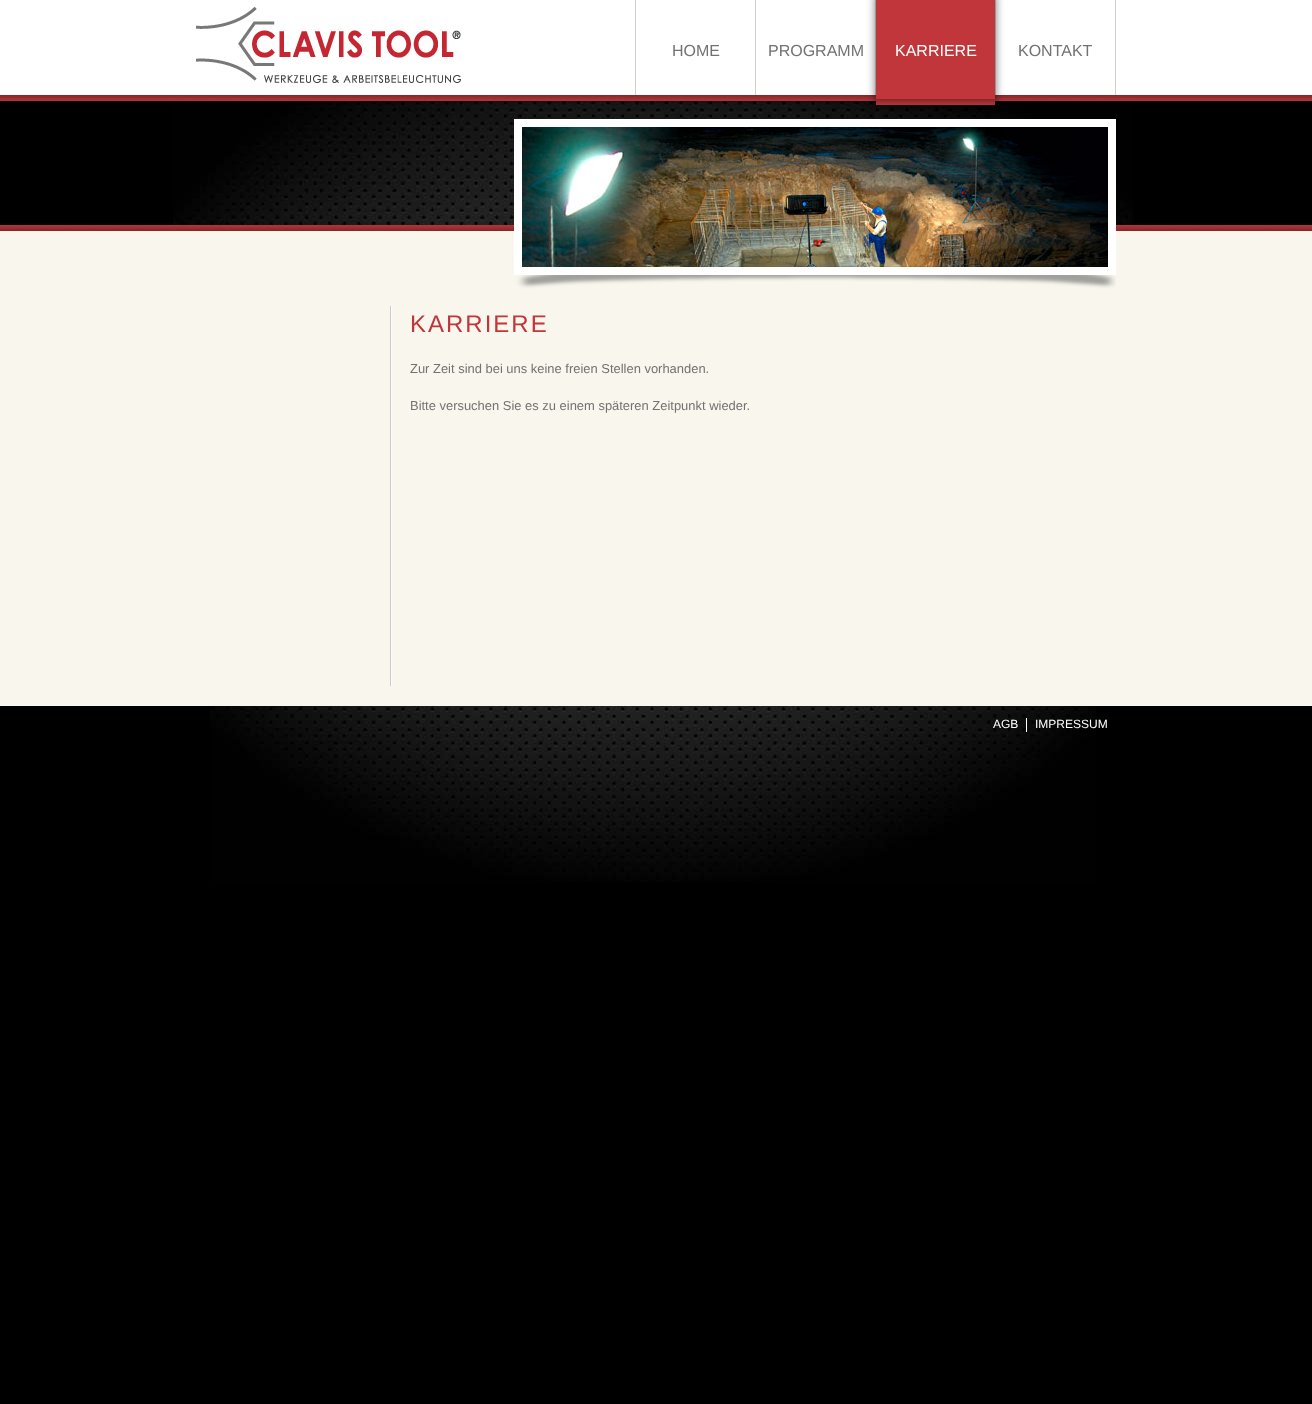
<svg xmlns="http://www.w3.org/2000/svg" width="1312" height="1404">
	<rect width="100%" height="100%" fill="#000000" />
	<rect x="0" y="0" width="1312" height="95" fill="#FFFFFF" />
	<image x="0" y="95" width="1312" height="6" href="assets/img1.png" />
	<image x="196" y="6" width="265" height="77" href="assets/img2.png" />
	<image x="173" y="101" width="960" height="124" href="assets/img3.png" />
	<rect x="635" y="0" width="1" height="95" fill="#D2D1D1" />
	<rect x="755" y="0" width="1" height="95" fill="#D2D1D1" />
	<text x="672" y="56" font-family="Liberation Sans" font-size="16" fill="#737271">HOME</text>
	<rect x="875" y="0" width="1" height="95" fill="#D2D1D1" />
	<text x="768" y="56" font-family="Liberation Sans" font-size="16" fill="#737271">PROGRAMM</text>
	<rect x="995" y="0" width="1" height="95" fill="#D2D1D1" />
	<rect x="876" y="-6" width="119" height="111" fill="#000000" fill-opacity="0.6" filter="blur(5px)" />
	<rect x="876" y="0" width="119" height="99" fill="#C1363B" />
	<image x="876" y="99" width="119" height="6" href="assets/img4.png" />
	<text x="895" y="56" font-family="Liberation Sans" font-size="16" fill="#FFFFFF">KARRIERE</text>
	<rect x="1115" y="0" width="1" height="95" fill="#D2D1D1" />
	<text x="1018" y="56" font-family="Liberation Sans" font-size="16" fill="#737271">KONTAKT</text>
	<rect x="0" y="231" width="1312" height="475" fill="#F8F6ED" />
	<image x="0" y="225" width="1312" height="6" href="assets/img5.png" />
	<rect x="514" y="119" width="602" height="156" fill="#FFFFFF" />
	<image x="514" y="275" width="602" height="17" href="assets/img6.png" />
	<image x="522" y="127" width="586" height="140" href="assets/img7.png" />
	<image x="390" y="306" width="2" height="380" href="assets/img8.png" />
	<text x="410" y="332" font-family="Liberation Sans" font-size="24" letter-spacing="2" fill="#C1363B">KARRIERE</text>
	<g font-family="Liberation Sans" font-size="12.95" fill="#737271">
		<text x="410" y="373">Zur Zeit sind bei uns keine freien Stellen vorhanden.</text>
		<text x="410" y="410">Bitte versuchen Sie es zu einem späteren Zeitpunkt wieder.</text>
	</g>
	<image x="210" y="706" width="886" height="176" href="assets/img9.png" />
	<text x="993" y="728" font-family="Liberation Sans" font-size="12" fill="#FFFFFF">AGB</text>
	<rect x="1026" y="718" width="1" height="14" fill="#FFFFFF" />
	<text x="1035" y="728" font-family="Liberation Sans" font-size="12" fill="#FFFFFF">IMPRESSUM</text>
</svg>
